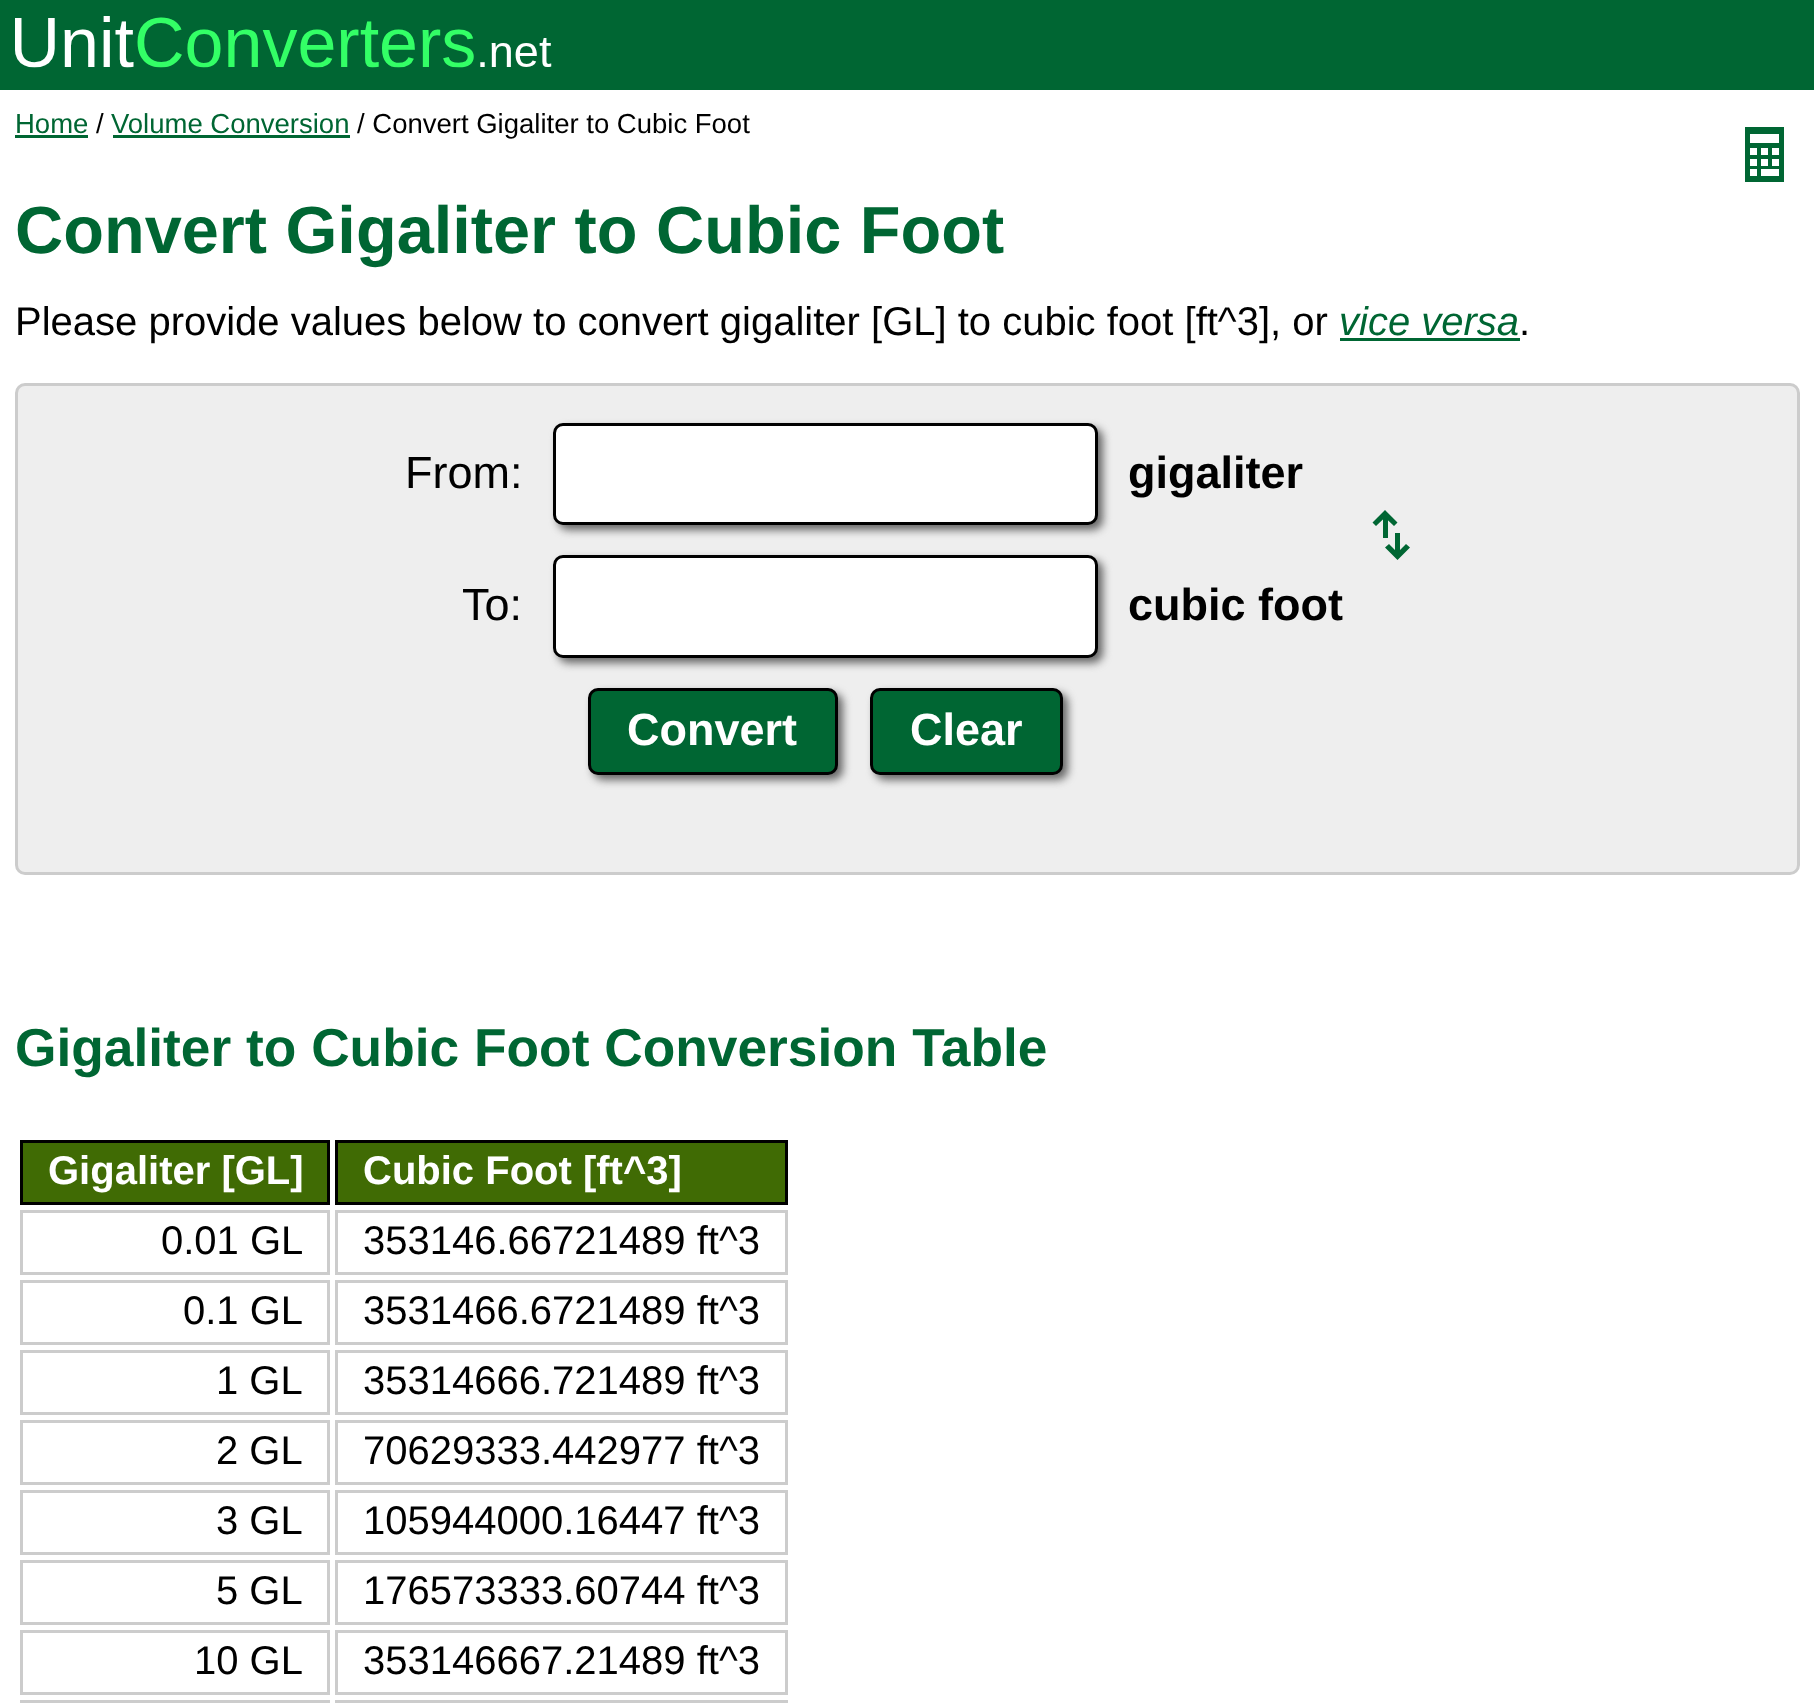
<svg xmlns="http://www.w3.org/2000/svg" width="1814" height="1703">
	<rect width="100%" height="100%" fill="#FFFFFF" />
	<rect x="0" y="0" width="1814" height="90" fill="#006633" />
	<image x="15" y="16" width="537" height="52" href="assets/img1.png" />
	<text x="15" y="133" font-family="Liberation Sans" font-size="27.5" fill="#006633">Home</text>
	<rect x="15" y="135" width="73" height="3" fill="#006633" />
	<text x="96" y="133" font-family="Liberation Sans" font-size="27.5" fill="#000000">/</text>
	<text x="111" y="133" font-family="Liberation Sans" font-size="27.5" fill="#006633">Volume Conversion</text>
	<rect x="113" y="135" width="237" height="3" fill="#006633" />
	<text x="357" y="133" font-family="Liberation Sans" font-size="27.5" fill="#000000">/ Convert Gigaliter to Cubic Foot</text>
	<rect x="1745" y="127" width="39" height="55" fill="#006633" />
	<rect x="1750" y="134" width="29" height="9" fill="#FFFFFF" />
	<rect x="1750" y="148" width="7" height="7" fill="#FFFFFF" />
	<rect x="1761" y="148" width="7" height="7" fill="#FFFFFF" />
	<rect x="1772" y="148" width="7" height="7" fill="#FFFFFF" />
	<rect x="1750" y="159" width="7" height="7" fill="#FFFFFF" />
	<rect x="1761" y="159" width="7" height="7" fill="#FFFFFF" />
	<rect x="1772" y="159" width="7" height="7" fill="#FFFFFF" />
	<rect x="1750" y="169" width="7" height="7" fill="#FFFFFF" />
	<rect x="1761" y="169" width="18" height="7" fill="#FFFFFF" />
	<text x="15" y="253" font-family="Liberation Sans" font-size="66.7" font-weight="700" fill="#006633">Convert Gigaliter to Cubic Foot</text>
	<text x="15" y="335" font-family="Liberation Sans" font-size="40" fill="#000000">Please provide values below to convert gigaliter [GL] to cubic foot [ft^3], or</text>
	<text x="1339" y="335" font-family="Liberation Sans" font-size="40" font-style="italic" fill="#006633">vice versa</text>
	<rect x="1340" y="338" width="180" height="3" fill="#006633" />
	<text x="1519" y="335" font-family="Liberation Sans" font-size="40" fill="#000000">.</text>
	<rect x="16.5" y="384.5" width="1782" height="489" rx="8.5" fill="#EEEEEE" stroke="#CCCCCC" stroke-width="3" />
	<text x="405" y="488" font-family="Liberation Sans" font-size="45" fill="#000000">From:</text>
	<rect x="558" y="428" width="545" height="102" rx="10" fill="#666666" filter="blur(4px)" />
	<rect x="554.5" y="424.5" width="542" height="99" rx="8.5" fill="#FFFFFF" stroke="#000000" stroke-width="3" />
	<text x="1128" y="488" font-family="Liberation Sans" font-size="45" font-weight="700" fill="#000000">gigaliter</text>
	<path d="M1385 510L1372.5 522.5L1376 526L1385 517.5L1394 526L1397.5 522.5Z" fill="#006633" />
	<rect x="1383" y="515" width="5" height="23" fill="#006633" />
	<path d="M1397.5 560L1410 547.5L1406 544L1397.5 552.5L1389 544L1385 547.5Z" fill="#006633" />
	<rect x="1395" y="533" width="5" height="22" fill="#006633" />
	<text x="462" y="620" font-family="Liberation Sans" font-size="45" fill="#000000">To:</text>
	<rect x="558" y="560" width="545" height="103" rx="10" fill="#666666" filter="blur(4px)" />
	<rect x="554.5" y="556.5" width="542" height="100" rx="8.5" fill="#FFFFFF" stroke="#000000" stroke-width="3" />
	<text x="1128" y="620" font-family="Liberation Sans" font-size="45" font-weight="700" fill="#000000">cubic foot</text>
	<rect x="593" y="693" width="250" height="87" rx="10" fill="#666666" filter="blur(4px)" />
	<rect x="589.5" y="689.5" width="247" height="84" rx="8.5" fill="#006633" stroke="#000000" stroke-width="3" />
	<text x="627" y="745" font-family="Liberation Sans" font-size="45" font-weight="700" fill="#FFFFFF">Convert</text>
	<rect x="875" y="693" width="193" height="87" rx="10" fill="#666666" filter="blur(4px)" />
	<rect x="871.5" y="689.5" width="190" height="84" rx="8.5" fill="#006633" stroke="#000000" stroke-width="3" />
	<text x="910" y="745" font-family="Liberation Sans" font-size="45" font-weight="700" fill="#FFFFFF">Clear</text>
	<text x="15" y="1066" font-family="Liberation Sans" font-size="53.3" font-weight="700" fill="#006633">Gigaliter to Cubic Foot Conversion Table</text>
	<rect x="21.5" y="1141.5" width="307" height="62" fill="#406B04" stroke="#000000" stroke-width="3" />
	<text x="48" y="1184" font-family="Liberation Sans" font-size="40" font-weight="700" fill="#FFFFFF">Gigaliter [GL]</text>
	<rect x="336.5" y="1141.5" width="450" height="62" fill="#406B04" stroke="#000000" stroke-width="3" />
	<text x="363" y="1184" font-family="Liberation Sans" font-size="40" font-weight="700" fill="#FFFFFF">Cubic Foot [ft^3]</text>
	<rect x="21.5" y="1211.5" width="307" height="62" fill="none" stroke="#CCCCCC" stroke-width="3" />
	<text x="161" y="1254" font-family="Liberation Sans" font-size="40" fill="#000000">0.01 GL</text>
	<rect x="336.5" y="1211.5" width="450" height="62" fill="none" stroke="#CCCCCC" stroke-width="3" />
	<text x="363" y="1254" font-family="Liberation Sans" font-size="40" fill="#000000">353146.66721489 ft^3</text>
	<rect x="21.5" y="1281.5" width="307" height="62" fill="none" stroke="#CCCCCC" stroke-width="3" />
	<text x="183" y="1324" font-family="Liberation Sans" font-size="40" fill="#000000">0.1 GL</text>
	<rect x="336.5" y="1281.5" width="450" height="62" fill="none" stroke="#CCCCCC" stroke-width="3" />
	<text x="363" y="1324" font-family="Liberation Sans" font-size="40" fill="#000000">3531466.6721489 ft^3</text>
	<rect x="21.5" y="1351.5" width="307" height="62" fill="none" stroke="#CCCCCC" stroke-width="3" />
	<text x="216" y="1394" font-family="Liberation Sans" font-size="40" fill="#000000">1 GL</text>
	<rect x="336.5" y="1351.5" width="450" height="62" fill="none" stroke="#CCCCCC" stroke-width="3" />
	<text x="363" y="1394" font-family="Liberation Sans" font-size="40" fill="#000000">35314666.721489 ft^3</text>
	<rect x="21.5" y="1421.5" width="307" height="62" fill="none" stroke="#CCCCCC" stroke-width="3" />
	<text x="216" y="1464" font-family="Liberation Sans" font-size="40" fill="#000000">2 GL</text>
	<rect x="336.5" y="1421.5" width="450" height="62" fill="none" stroke="#CCCCCC" stroke-width="3" />
	<text x="363" y="1464" font-family="Liberation Sans" font-size="40" fill="#000000">70629333.442977 ft^3</text>
	<rect x="21.5" y="1491.5" width="307" height="62" fill="none" stroke="#CCCCCC" stroke-width="3" />
	<text x="216" y="1534" font-family="Liberation Sans" font-size="40" fill="#000000">3 GL</text>
	<rect x="336.5" y="1491.5" width="450" height="62" fill="none" stroke="#CCCCCC" stroke-width="3" />
	<text x="363" y="1534" font-family="Liberation Sans" font-size="40" fill="#000000">105944000.16447 ft^3</text>
	<rect x="21.5" y="1561.5" width="307" height="62" fill="none" stroke="#CCCCCC" stroke-width="3" />
	<text x="216" y="1604" font-family="Liberation Sans" font-size="40" fill="#000000">5 GL</text>
	<rect x="336.5" y="1561.5" width="450" height="62" fill="none" stroke="#CCCCCC" stroke-width="3" />
	<text x="363" y="1604" font-family="Liberation Sans" font-size="40" fill="#000000">176573333.60744 ft^3</text>
	<rect x="21.5" y="1631.5" width="307" height="62" fill="none" stroke="#CCCCCC" stroke-width="3" />
	<text x="194" y="1674" font-family="Liberation Sans" font-size="40" fill="#000000">10 GL</text>
	<rect x="336.5" y="1631.5" width="450" height="62" fill="none" stroke="#CCCCCC" stroke-width="3" />
	<text x="363" y="1674" font-family="Liberation Sans" font-size="40" fill="#000000">353146667.21489 ft^3</text>
	<rect x="21.5" y="1701.5" width="307" height="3" fill="none" stroke="#CCCCCC" stroke-width="3" />
	<rect x="336.5" y="1701.5" width="450" height="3" fill="none" stroke="#CCCCCC" stroke-width="3" />
</svg>
